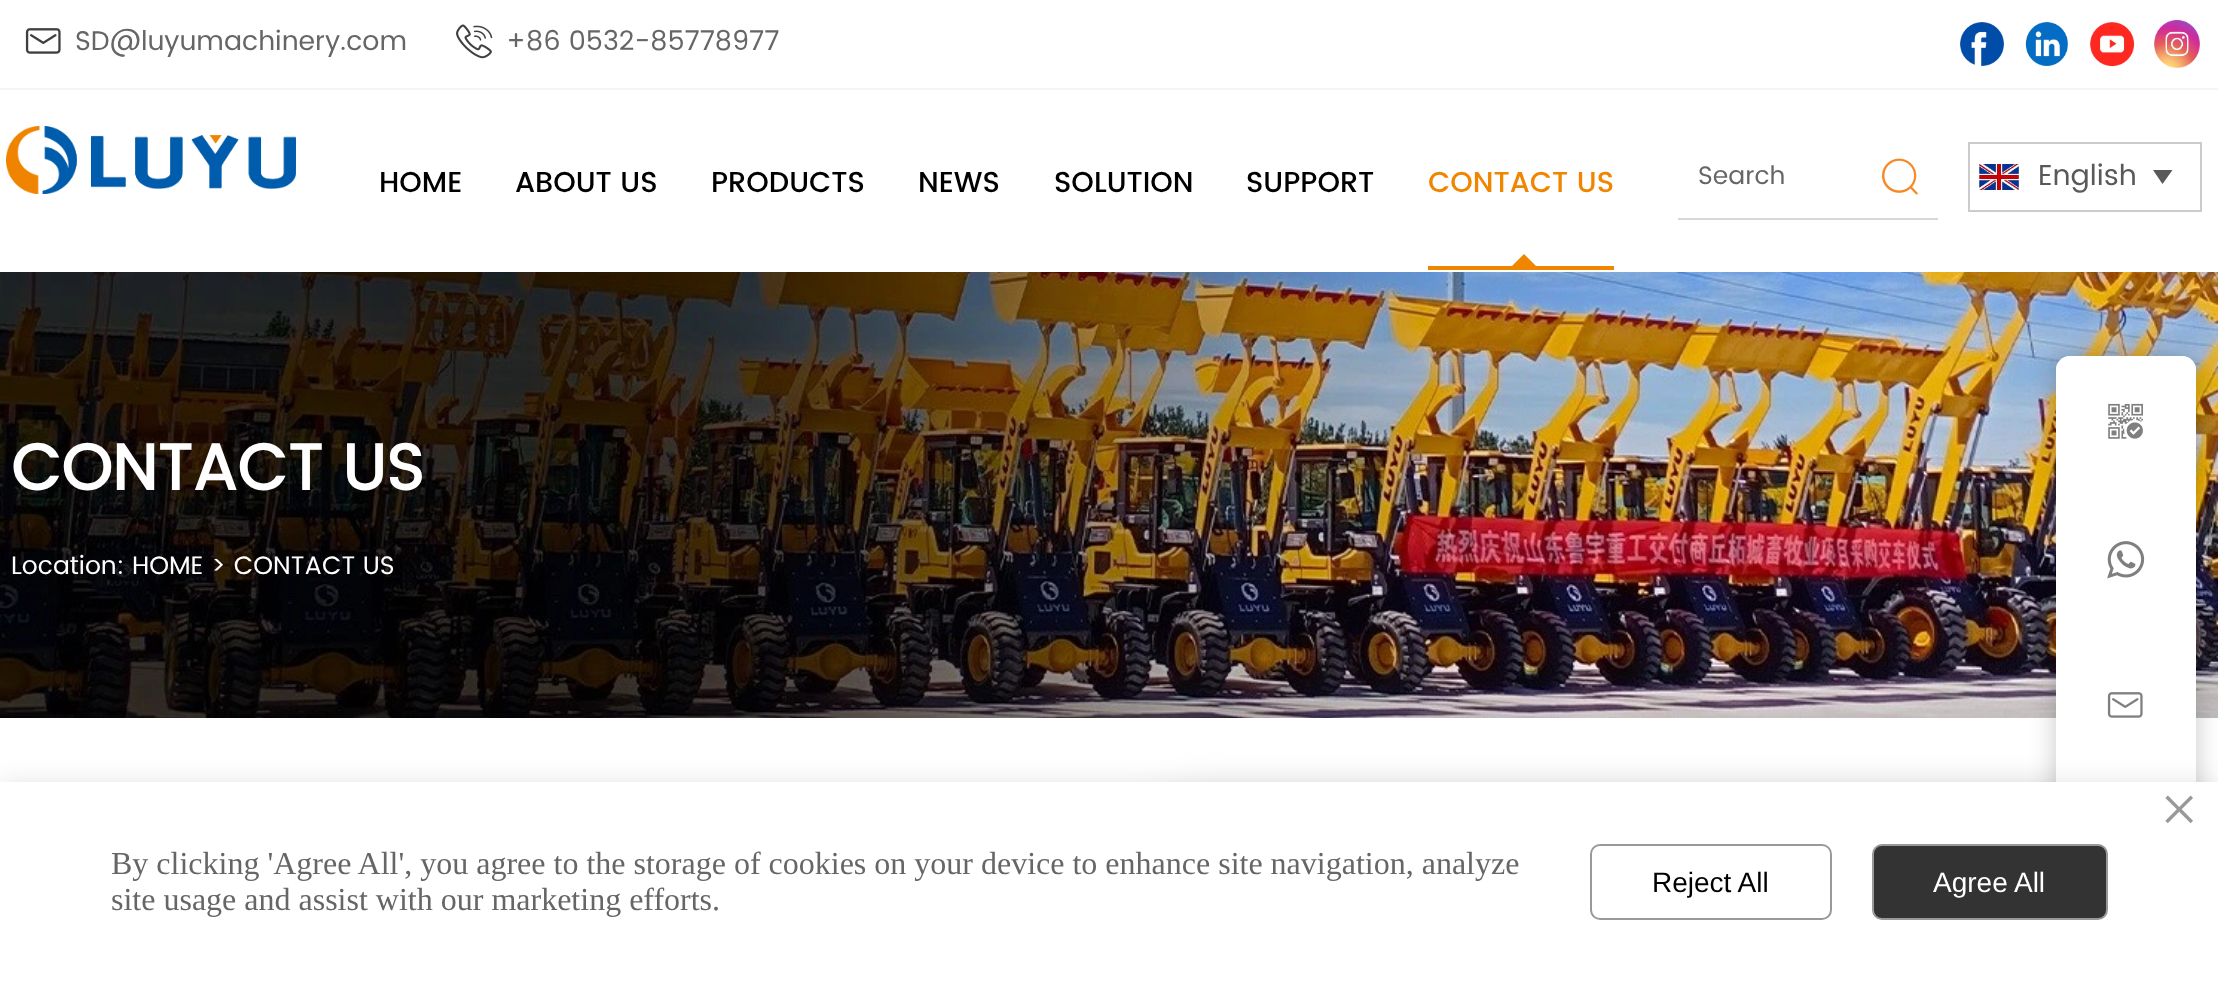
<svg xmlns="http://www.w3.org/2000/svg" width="2218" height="982">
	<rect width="100%" height="100%" fill="#FFFFFF" />
	<rect x="0" y="88" width="2218" height="2" fill="#F5F5F5" />
	<image x="25" y="28" width="36" height="26" href="assets/img1.png" />
	<text x="75" y="50" font-family="Poppins" font-size="27" fill="#666666">SD@luyumachinery.com</text>
	<image x="456" y="24" width="37" height="35" href="assets/img2.png" />
	<text x="506" y="50" font-family="Poppins" font-size="27" fill="#666666">+86 0532-85778977</text>
	<image x="1960" y="22" width="44" height="44" href="assets/img3.png" />
	<image x="2025" y="22" width="43" height="45" href="assets/img4.png" />
	<image x="2090" y="22" width="45" height="45" href="assets/img5.png" />
	<image x="2154" y="20" width="46" height="48" href="assets/img6.png" />
	<image x="6" y="126" width="290" height="68" href="assets/img7.png" />
	<g font-family="Poppins" font-size="28.75" font-weight="500" fill="#000000">
		<text x="379" y="192">HOME</text>
		<text x="515" y="192">ABOUT US</text>
		<text x="711" y="192">PRODUCTS</text>
		<text x="918" y="192">NEWS</text>
		<text x="1054" y="192">SOLUTION</text>
		<text x="1246" y="192">SUPPORT</text>
	</g>
	<rect x="1428" y="266" width="186" height="4" fill="#F08500" />
	<text x="1428" y="192" font-family="Poppins" font-size="28.75" font-weight="500" fill="#F08500">CONTACT US</text>
	<path d="M1536 266H1512L1524 254Z" fill="#F08500" />
	<rect x="1678" y="218" width="260" height="2" fill="#D8D8D8" />
	<text x="1698" y="184" font-family="Poppins" font-size="25.25" fill="#666666">Search</text>
	<image x="1882" y="158" width="36" height="37" href="assets/img8.png" />
	<rect x="1969" y="143" width="232" height="68" fill="none" stroke="#CCCCCC" stroke-width="2" />
	<image x="1979" y="164" width="40" height="26" href="assets/img9.png" />
	<text x="2038" y="185" font-family="Poppins" font-size="28.75" fill="#595959">English</text>
	<path d="M2162.5 184L2153 170H2172.5Z" fill="#595959" />
	<image x="0" y="272" width="2218" height="446" href="assets/img10.png" />
	<text x="11" y="490" font-family="Poppins" font-size="64.75" font-weight="700" fill="#FFFFFF">CONTACT US</text>
	<text x="11" y="574" font-family="Poppins" font-size="25.25" fill="#FFFFFF">Location: HOME &gt; CONTACT US</text>
	<rect x="1166" y="798" width="996" height="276" rx="20" fill="#D9D9D9" fill-opacity="0.74" filter="blur(24px)" />
	<rect x="2056" y="356" width="140" height="568" rx="14" fill="#000000" fill-opacity="0.22" filter="blur(13px)" />
	<rect x="2056" y="356" width="140" height="568" rx="14" fill="#FFFFFF" />
	<path d="M2070 356H2182C2189.5 356 2196 362.5 2196 370V496H2056V370C2056 362.5 2062.5 356 2070 356Z" fill="#FFFFFF" />
	<image x="2108" y="403" width="35" height="36" href="assets/img11.png" />
	<image x="2107" y="541" width="38" height="38" href="assets/img12.png" />
	<image x="2107" y="692" width="36" height="26" href="assets/img13.png" />
	<rect x="0" y="782" width="2218" height="200" fill="#000000" fill-opacity="0.1" filter="blur(12px)" />
	<rect x="0" y="782" width="2218" height="200" fill="#FFFFFF" />
	<text x="2160" y="832" font-family="Liberation Serif" font-size="68" fill="#999999">×</text>
	<g font-family="Liberation Serif" font-size="32" fill="#666666">
		<text x="111" y="874">By clicking 'Agree All', you agree to the storage of cookies on your device to enhance site navigation, analyze</text>
		<text x="111" y="910">site usage and assist with our marketing efforts.</text>
	</g>
	<rect x="1591" y="845" width="240" height="74" rx="9" fill="none" stroke="#999999" stroke-width="2" />
	<text x="1652" y="892" font-family="Liberation Sans" font-size="28" fill="#000000">Reject All</text>
	<rect x="1873" y="845" width="234" height="74" rx="9" fill="#333333" stroke="#999999" stroke-width="2" />
	<text x="1933" y="892" font-family="Liberation Sans" font-size="28" fill="#FFFFFF">Agree All</text>
</svg>
